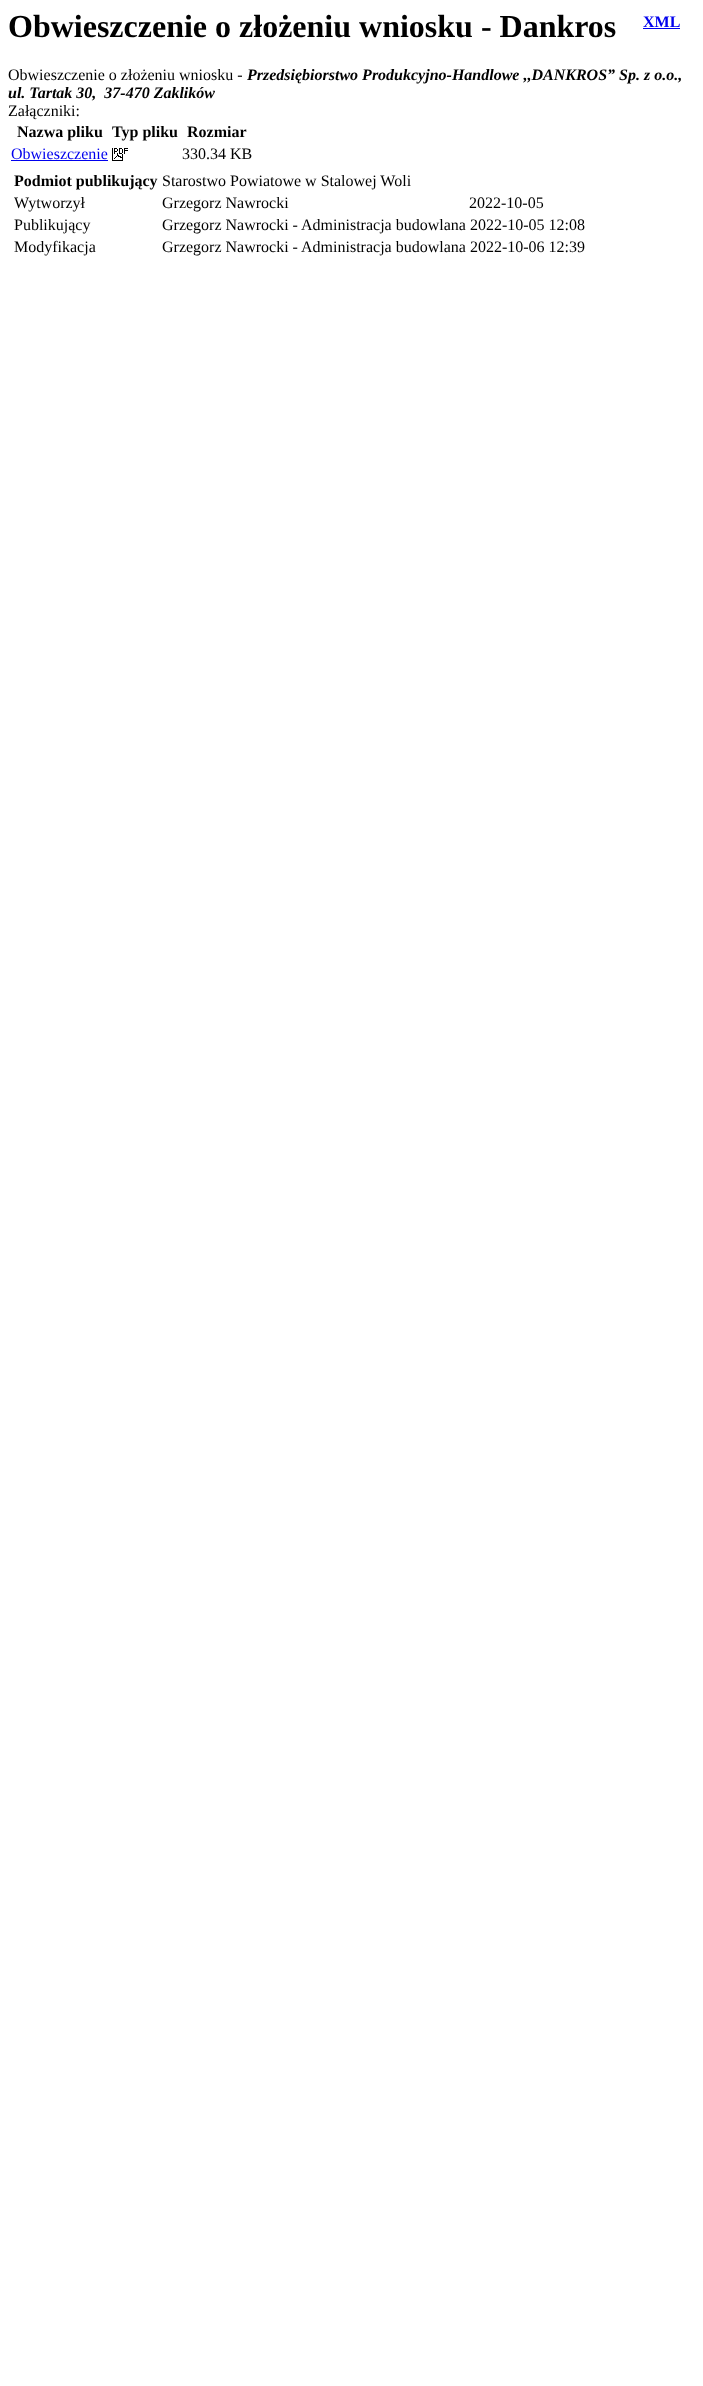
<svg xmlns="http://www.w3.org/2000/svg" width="703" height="2386">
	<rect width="100%" height="100%" fill="#FFFFFF" />
	<text x="8" y="37" font-family="Liberation Serif" font-size="32" font-weight="700" fill="#000000">Obwieszczenie o złożeniu wniosku - Dankros</text>
	<text x="8" y="80" font-family="Liberation Serif" font-size="16" fill="#000000">Obwieszczenie o złożeniu wniosku -</text>
	<g font-family="Liberation Serif" font-size="16" font-weight="700" font-style="italic" fill="#000000">
		<text x="247" y="80">Przedsiębiorstwo Produkcyjno-Handlowe ,,DANKROS” Sp. z o.o.,</text>
		<text x="8" y="98" xml:space="preserve">ul. Tartak 30,  37-470 Zaklików</text>
	</g>
	<text x="8" y="116" font-family="Liberation Serif" font-size="16" fill="#000000">Załączniki:</text>
	<g font-family="Liberation Serif" font-size="16" font-weight="700" fill="#000000">
		<text x="17" y="137">Nazwa pliku</text>
		<text x="112" y="137">Typ pliku</text>
		<text x="187" y="137">Rozmiar</text>
	</g>
	<text x="11" y="159" font-family="Liberation Serif" font-size="16" fill="#0000EE">Obwieszczenie</text>
	<rect x="11" y="160" width="97" height="1" fill="#0000EE" />
	<image x="112" y="148" width="16" height="13" href="assets/img1.png" />
	<text x="182" y="159" font-family="Liberation Serif" font-size="16" fill="#000000">330.34 KB</text>
	<text x="14" y="186" font-family="Liberation Serif" font-size="16" font-weight="700" fill="#000000">Podmiot publikujący</text>
	<g font-family="Liberation Serif" font-size="16" fill="#000000">
		<text x="162" y="186">Starostwo Powiatowe w Stalowej Woli</text>
		<text x="14" y="208">Wytworzył</text>
		<text x="162" y="208">Grzegorz Nawrocki</text>
		<text x="469" y="208">2022-10-05</text>
		<text x="14" y="230">Publikujący</text>
		<text x="162" y="230">Grzegorz Nawrocki - Administracja budowlana 2022-10-05 12:08</text>
		<text x="14" y="252">Modyfikacja</text>
		<text x="162" y="252">Grzegorz Nawrocki - Administracja budowlana 2022-10-06 12:39</text>
	</g>
	<text x="643" y="27" font-family="Liberation Serif" font-size="16" font-weight="700" fill="#0000EE">XML</text>
	<rect x="643" y="28" width="37" height="1" fill="#0000EE" />
</svg>
